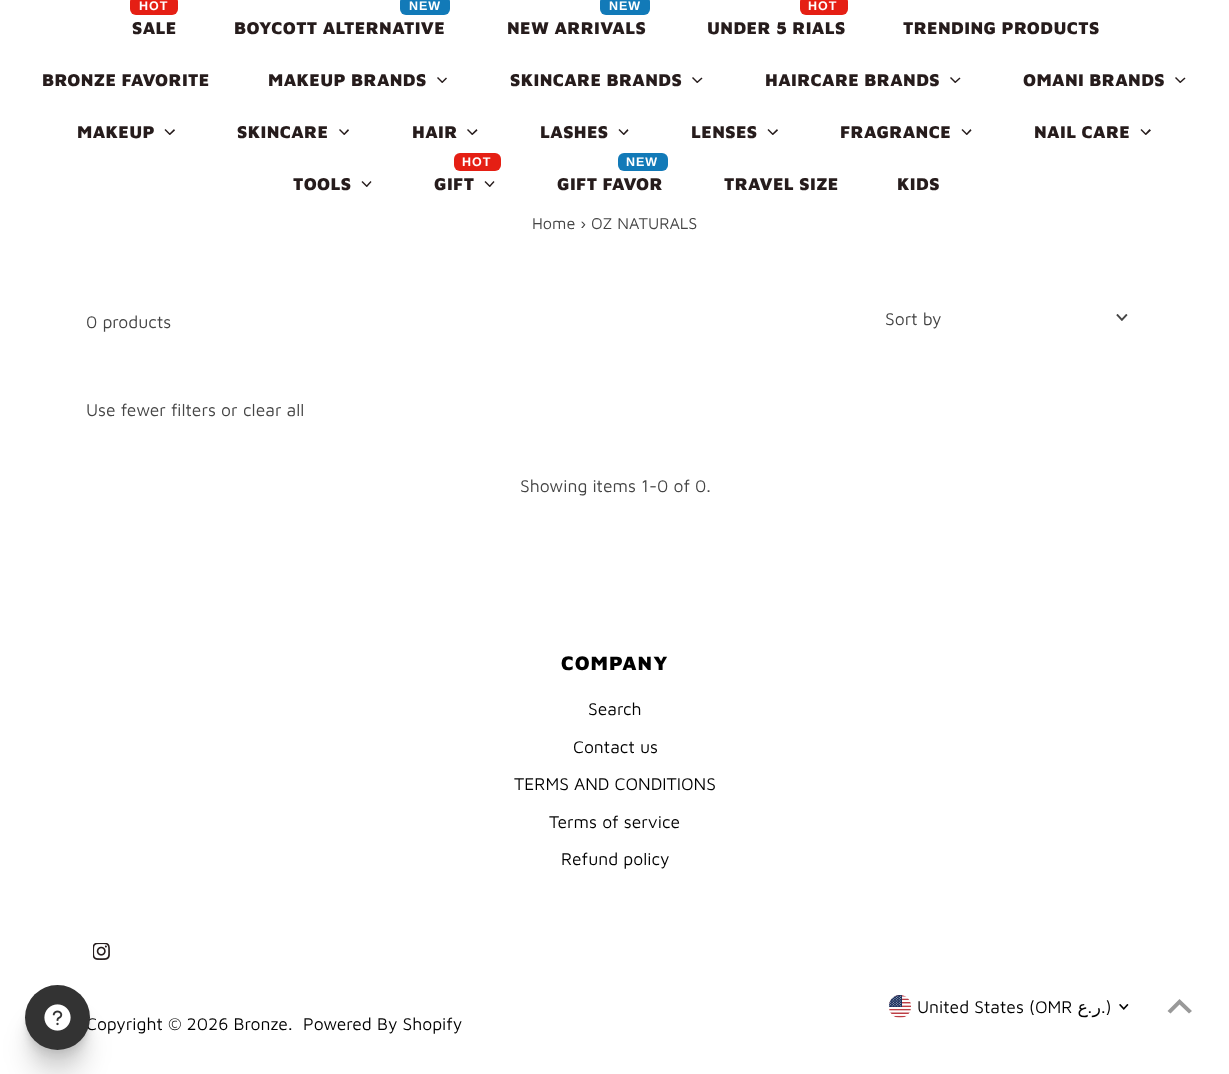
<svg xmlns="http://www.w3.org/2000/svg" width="1229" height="1074">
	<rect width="100%" height="100%" fill="#FFFFFF" />
	<rect x="130" y="-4" width="48" height="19" rx="6" fill="#E51F14" />
	<text x="139" y="10" font-family="Liberation Sans" font-size="12.5" font-weight="700" letter-spacing="1" fill="#FFFFFF">HOT</text>
	<text x="132" y="34" font-family="Maven Pro" font-size="17.5" font-weight="900" letter-spacing="0.4" fill="#261C1C">SALE</text>
	<rect x="400" y="-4" width="50" height="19" rx="6" fill="#127AB8" />
	<text x="409" y="10" font-family="Liberation Sans" font-size="12.5" font-weight="700" letter-spacing="1" fill="#FFFFFF">NEW</text>
	<text x="234" y="34" font-family="Maven Pro" font-size="17.5" font-weight="900" letter-spacing="0.4" fill="#261C1C">BOYCOTT ALTERNATIVE</text>
	<rect x="600" y="-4" width="50" height="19" rx="6" fill="#127AB8" />
	<text x="609" y="10" font-family="Liberation Sans" font-size="12.5" font-weight="700" letter-spacing="1" fill="#FFFFFF">NEW</text>
	<text x="507" y="34" font-family="Maven Pro" font-size="17.5" font-weight="900" letter-spacing="0.4" fill="#261C1C">NEW ARRIVALS</text>
	<rect x="800" y="-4" width="48" height="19" rx="6" fill="#E51F14" />
	<text x="808" y="10" font-family="Liberation Sans" font-size="12.5" font-weight="700" letter-spacing="1" fill="#FFFFFF">HOT</text>
	<g font-family="Maven Pro" font-size="17.5" font-weight="900" letter-spacing="0.4" fill="#261C1C">
		<text x="707" y="34">UNDER 5 RIALS</text>
		<text x="903" y="34">TRENDING PRODUCTS</text>
		<text x="42" y="86">BRONZE FAVORITE</text>
		<text x="268" y="86">MAKEUP BRANDS</text>
	</g>
	<path d="M446 77.5L447 78.5L442.5 83L441.5 82Z" fill="#261C1C" />
	<path d="M438 77L443 82L442 83L437 78Z" fill="#261C1C" />
	<text x="510" y="86" font-family="Maven Pro" font-size="17.5" font-weight="900" letter-spacing="0.4" fill="#261C1C">SKINCARE BRANDS</text>
	<path d="M701.5 77.5L702.5 78.5L697.5 83L696.5 82Z" fill="#261C1C" />
	<path d="M693 77L698 82L697 83L692 78Z" fill="#261C1C" />
	<text x="765" y="86" font-family="Maven Pro" font-size="17.5" font-weight="900" letter-spacing="0.4" fill="#261C1C">HAIRCARE BRANDS</text>
	<path d="M959.5 77.5L960.5 78.5L955.5 83L954.5 82Z" fill="#261C1C" />
	<path d="M951 77L956 82L955 83L950 78Z" fill="#261C1C" />
	<text x="1023" y="86" font-family="Maven Pro" font-size="17.5" font-weight="900" letter-spacing="0.4" fill="#261C1C">OMANI BRANDS</text>
	<path d="M1184.5 77.5L1185.5 78.5L1180.5 83L1179.5 82Z" fill="#261C1C" />
	<path d="M1176 77L1181 82L1180 83L1175 78Z" fill="#261C1C" />
	<text x="77" y="138" font-family="Maven Pro" font-size="17.5" font-weight="900" letter-spacing="0.4" fill="#261C1C">MAKEUP</text>
	<path d="M174 129L175 130.5L170 135L169 134Z" fill="#261C1C" />
	<path d="M165.5 129L170.5 134L169.5 135L164.5 130Z" fill="#261C1C" />
	<text x="237" y="138" font-family="Maven Pro" font-size="17.5" font-weight="900" letter-spacing="0.4" fill="#261C1C">SKINCARE</text>
	<path d="M348 129L349 130.5L344.5 135L343.5 134Z" fill="#261C1C" />
	<path d="M340 129L345 134L344 135L339 130Z" fill="#261C1C" />
	<text x="412" y="138" font-family="Maven Pro" font-size="17.5" font-weight="900" letter-spacing="0.4" fill="#261C1C">HAIR</text>
	<path d="M476.5 129L477.5 130.5L472.5 135L471.5 134Z" fill="#261C1C" />
	<path d="M468 129L473 134L472 135L467 130Z" fill="#261C1C" />
	<text x="540" y="138" font-family="Maven Pro" font-size="17.5" font-weight="900" letter-spacing="0.4" fill="#261C1C">LASHES</text>
	<path d="M627.5 129L628.5 130.5L624 135L623 134Z" fill="#261C1C" />
	<path d="M619.5 129L624.5 134L623.5 135L618.5 130Z" fill="#261C1C" />
	<text x="691" y="138" font-family="Maven Pro" font-size="17.5" font-weight="900" letter-spacing="0.4" fill="#261C1C">LENSES</text>
	<path d="M777 129L778 130.5L773 135L772 134Z" fill="#261C1C" />
	<path d="M768.5 129L773.5 134L772.5 135L767.5 130Z" fill="#261C1C" />
	<text x="840" y="138" font-family="Maven Pro" font-size="17.5" font-weight="900" letter-spacing="0.4" fill="#261C1C">FRAGRANCE</text>
	<path d="M970.5 129L971.5 130.5L967 135L966 134Z" fill="#261C1C" />
	<path d="M962.5 129L967.5 134L966.5 135L961.5 130Z" fill="#261C1C" />
	<text x="1034" y="138" font-family="Maven Pro" font-size="17.5" font-weight="900" letter-spacing="0.4" fill="#261C1C">NAIL CARE</text>
	<path d="M1149.5 129L1151 130.5L1146 135L1145 134Z" fill="#261C1C" />
	<path d="M1141.5 129L1146.5 134L1145.5 135L1140.5 130Z" fill="#261C1C" />
	<text x="293" y="190" font-family="Maven Pro" font-size="17.5" font-weight="900" letter-spacing="0.4" fill="#261C1C">TOOLS</text>
	<path d="M370.5 181L371.5 182L367 187L366 186Z" fill="#261C1C" />
	<path d="M362.5 181L367.5 186L366.5 187L361.5 182Z" fill="#261C1C" />
	<rect x="454" y="153" width="47" height="18" rx="6" fill="#E51F14" />
	<text x="462" y="166" font-family="Liberation Sans" font-size="12.5" font-weight="700" letter-spacing="1" fill="#FFFFFF">HOT</text>
	<text x="434" y="190" font-family="Maven Pro" font-size="17.5" font-weight="900" letter-spacing="0.4" fill="#261C1C">GIFT</text>
	<path d="M493.5 181L494.5 182L490 187L489 186Z" fill="#261C1C" />
	<path d="M485.5 181L490.5 186L489.5 187L484.5 182Z" fill="#261C1C" />
	<rect x="618" y="153" width="50" height="18" rx="6" fill="#127AB8" />
	<text x="626" y="166" font-family="Liberation Sans" font-size="12.5" font-weight="700" letter-spacing="1" fill="#FFFFFF">NEW</text>
	<g font-family="Maven Pro" font-size="17.5" font-weight="900" letter-spacing="0.4" fill="#261C1C">
		<text x="557" y="190">GIFT FAVOR</text>
		<text x="724" y="190">TRAVEL SIZE</text>
		<text x="897" y="190">KIDS</text>
	</g>
	<text x="532" y="229" font-family="Maven Pro" font-size="16.25" fill="#454545">Home › OZ NATURALS</text>
	<g font-family="Maven Pro" font-size="17.5" fill="#454545">
		<text x="86" y="328">0 products</text>
		<text x="885" y="325">Sort by</text>
	</g>
	<image x="1116" y="314" width="12" height="7" href="assets/img1.png" />
	<g font-family="Maven Pro" font-size="17.5" fill="#454545">
		<text x="86" y="416">Use fewer filters or</text>
		<text x="243" y="416">clear all</text>
		<text x="520" y="492">Showing items 1-0 of 0.</text>
	</g>
	<text x="561" y="670" font-family="Maven Pro" font-size="20" font-weight="900" letter-spacing="1" fill="#000000">COMPANY</text>
	<g font-family="Maven Pro" font-size="17.5" fill="#000000">
		<text x="588" y="715">Search</text>
		<text x="573" y="753">Contact us</text>
		<text x="514" y="790">TERMS AND CONDITIONS</text>
		<text x="549" y="828">Terms of service</text>
		<text x="561" y="865">Refund policy</text>
	</g>
	<image x="889" y="995" width="22" height="23" href="assets/img2.png" />
	<text x="917" y="1013" font-family="Maven Pro" font-size="17.5" fill="#000000">United States (OMR</text>
	<text x="1088" y="1013" font-family="DejaVu Sans" font-size="17.5" direction="rtl" fill="#000000">ع</text>
	<text x="1101" y="1013" font-family="Maven Pro" font-size="17.5" fill="#000000">.)</text>
	<image x="1119" y="1004" width="10" height="6" href="assets/img3.png" />
	<text x="1092" y="1013" font-family="Maven Pro" font-size="17.5" direction="rtl" fill="#000000">.</text>
	<text x="1101" y="1013" font-family="DejaVu Sans" font-size="17.5" direction="rtl" fill="#000000">ر</text>
	<image x="93" y="943" width="17" height="17" href="assets/img4.png" />
	<g font-family="Maven Pro" font-size="17.5" fill="#000000">
		<text x="86" y="1030">Copyright © 2026 Bronze.</text>
		<text x="303" y="1030">Powered By Shopify</text>
	</g>
	<path d="M1179.5 999L1167.5 1011L1170.5 1013.5L1179.5 1004.5L1189 1013.5L1192 1011Z" fill="#999999" />
	<rect x="25" y="1016" width="65" height="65" rx="32.5" fill="#000000" fill-opacity="0.1" filter="blur(12.5px)" />
	<rect x="25" y="1001" width="65" height="65" rx="32.5" fill="#000000" fill-opacity="0.06" filter="blur(6px)" />
	<rect x="25" y="993" width="65" height="65" rx="32.5" fill="#000000" fill-opacity="0.06" filter="blur(2.5px)" />
	<rect x="25" y="988" width="65" height="65" rx="32.5" fill="#000000" fill-opacity="0.04" filter="blur(1px)" />
	<circle cx="57.5" cy="1017.5" r="32.5" fill="#333333" />
	<image x="44" y="1004" width="27" height="27" href="assets/img5.png" />
</svg>
